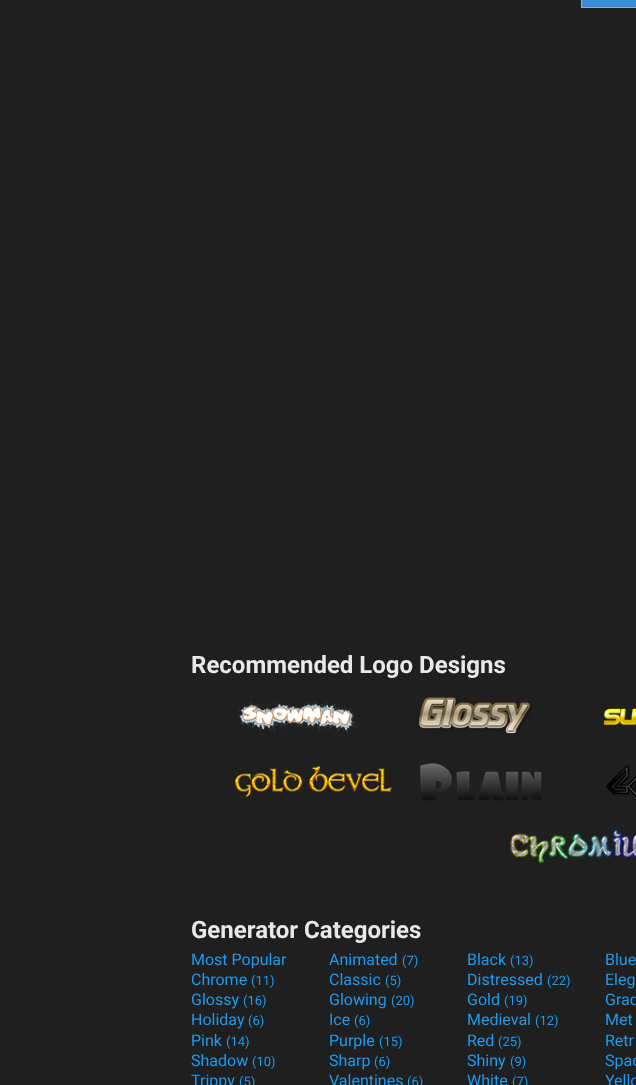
<svg xmlns="http://www.w3.org/2000/svg" width="636" height="1085">
	<rect width="100%" height="100%" fill="#1F1F1F" />
	<rect x="581.5" y="-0.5" width="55" height="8" fill="#3A8DD9" stroke="#9CAABA" />
	<text x="191" y="673" font-family="Roboto" font-size="24" font-weight="700" fill="#E7E9EA">Recommended Logo Designs</text>
	<image x="237" y="698" width="121" height="39" href="assets/img1.png" />
	<image x="419" y="697" width="113" height="38" href="assets/img2.png" />
	<image x="603" y="708" width="33" height="18" href="assets/img3.png" />
	<image x="234" y="765" width="158" height="33" href="assets/img4.png" />
	<image x="420" y="763" width="122" height="38" href="assets/img5.png" />
	<image x="606" y="765" width="30" height="32" href="assets/img6.png" />
	<image x="510" y="829" width="126" height="36" href="assets/img7.png" />
	<text x="191" y="938" font-family="Roboto" font-size="24" font-weight="700" fill="#E7E9EA">Generator Categories</text>
	<g font-family="Roboto" font-size="16" fill="#1D9BF0">
		<text x="191" y="965">Most Popular</text>
		<text x="329" y="965">Animated</text>
	</g>
	<text x="402" y="965" font-family="Roboto" font-size="13" fill="#1D9BF0">(7)</text>
	<text x="467" y="965" font-family="Roboto" font-size="16" fill="#1D9BF0">Black</text>
	<text x="510" y="965" font-family="Roboto" font-size="13" fill="#1D9BF0">(13)</text>
	<g font-family="Roboto" font-size="16" fill="#1D9BF0">
		<text x="605" y="965">Blue</text>
		<text x="191" y="985">Chrome</text>
	</g>
	<text x="251" y="985" font-family="Roboto" font-size="13" fill="#1D9BF0">(11)</text>
	<text x="329" y="985" font-family="Roboto" font-size="16" fill="#1D9BF0">Classic</text>
	<text x="385" y="985" font-family="Roboto" font-size="13" fill="#1D9BF0">(5)</text>
	<text x="467" y="985" font-family="Roboto" font-size="16" fill="#1D9BF0">Distressed</text>
	<text x="547" y="985" font-family="Roboto" font-size="13" fill="#1D9BF0">(22)</text>
	<g font-family="Roboto" font-size="16" fill="#1D9BF0">
		<text x="605" y="985">Eleg</text>
		<text x="191" y="1005">Glossy</text>
	</g>
	<text x="243" y="1005" font-family="Roboto" font-size="13" fill="#1D9BF0">(16)</text>
	<text x="329" y="1005" font-family="Roboto" font-size="16" fill="#1D9BF0">Glowing</text>
	<text x="391" y="1005" font-family="Roboto" font-size="13" fill="#1D9BF0">(20)</text>
	<text x="467" y="1005" font-family="Roboto" font-size="16" fill="#1D9BF0">Gold</text>
	<text x="504" y="1005" font-family="Roboto" font-size="13" fill="#1D9BF0">(19)</text>
	<g font-family="Roboto" font-size="16" fill="#1D9BF0">
		<text x="605" y="1005">Grad</text>
		<text x="191" y="1025">Holiday</text>
	</g>
	<text x="248" y="1025" font-family="Roboto" font-size="13" fill="#1D9BF0">(6)</text>
	<text x="329" y="1025" font-family="Roboto" font-size="16" fill="#1D9BF0">Ice</text>
	<text x="354" y="1025" font-family="Roboto" font-size="13" fill="#1D9BF0">(6)</text>
	<text x="467" y="1025" font-family="Roboto" font-size="16" fill="#1D9BF0">Medieval</text>
	<text x="535" y="1025" font-family="Roboto" font-size="13" fill="#1D9BF0">(12)</text>
	<g font-family="Roboto" font-size="16" fill="#1D9BF0">
		<text x="605" y="1025">Met</text>
		<text x="191" y="1046">Pink</text>
	</g>
	<text x="226" y="1046" font-family="Roboto" font-size="13" fill="#1D9BF0">(14)</text>
	<text x="329" y="1046" font-family="Roboto" font-size="16" fill="#1D9BF0">Purple</text>
	<text x="379" y="1046" font-family="Roboto" font-size="13" fill="#1D9BF0">(15)</text>
	<text x="467" y="1046" font-family="Roboto" font-size="16" fill="#1D9BF0">Red</text>
	<text x="498" y="1046" font-family="Roboto" font-size="13" fill="#1D9BF0">(25)</text>
	<g font-family="Roboto" font-size="16" fill="#1D9BF0">
		<text x="605" y="1046">Retr</text>
		<text x="191" y="1066">Shadow</text>
	</g>
	<text x="252" y="1066" font-family="Roboto" font-size="13" fill="#1D9BF0">(10)</text>
	<text x="329" y="1066" font-family="Roboto" font-size="16" fill="#1D9BF0">Sharp</text>
	<text x="374" y="1066" font-family="Roboto" font-size="13" fill="#1D9BF0">(6)</text>
	<text x="467" y="1066" font-family="Roboto" font-size="16" fill="#1D9BF0">Shiny</text>
	<text x="510" y="1066" font-family="Roboto" font-size="13" fill="#1D9BF0">(9)</text>
	<g font-family="Roboto" font-size="16" fill="#1D9BF0">
		<text x="605" y="1066">Spac</text>
		<text x="191" y="1086">Trippy</text>
	</g>
	<text x="239" y="1086" font-family="Roboto" font-size="13" fill="#1D9BF0">(5)</text>
	<text x="329" y="1086" font-family="Roboto" font-size="16" fill="#1D9BF0">Valentines</text>
	<text x="407" y="1086" font-family="Roboto" font-size="13" fill="#1D9BF0">(6)</text>
	<text x="467" y="1086" font-family="Roboto" font-size="16" fill="#1D9BF0">White</text>
	<text x="512" y="1086" font-family="Roboto" font-size="13" fill="#1D9BF0">(7)</text>
	<text x="605" y="1086" font-family="Roboto" font-size="16" fill="#1D9BF0">Yello</text>
</svg>
